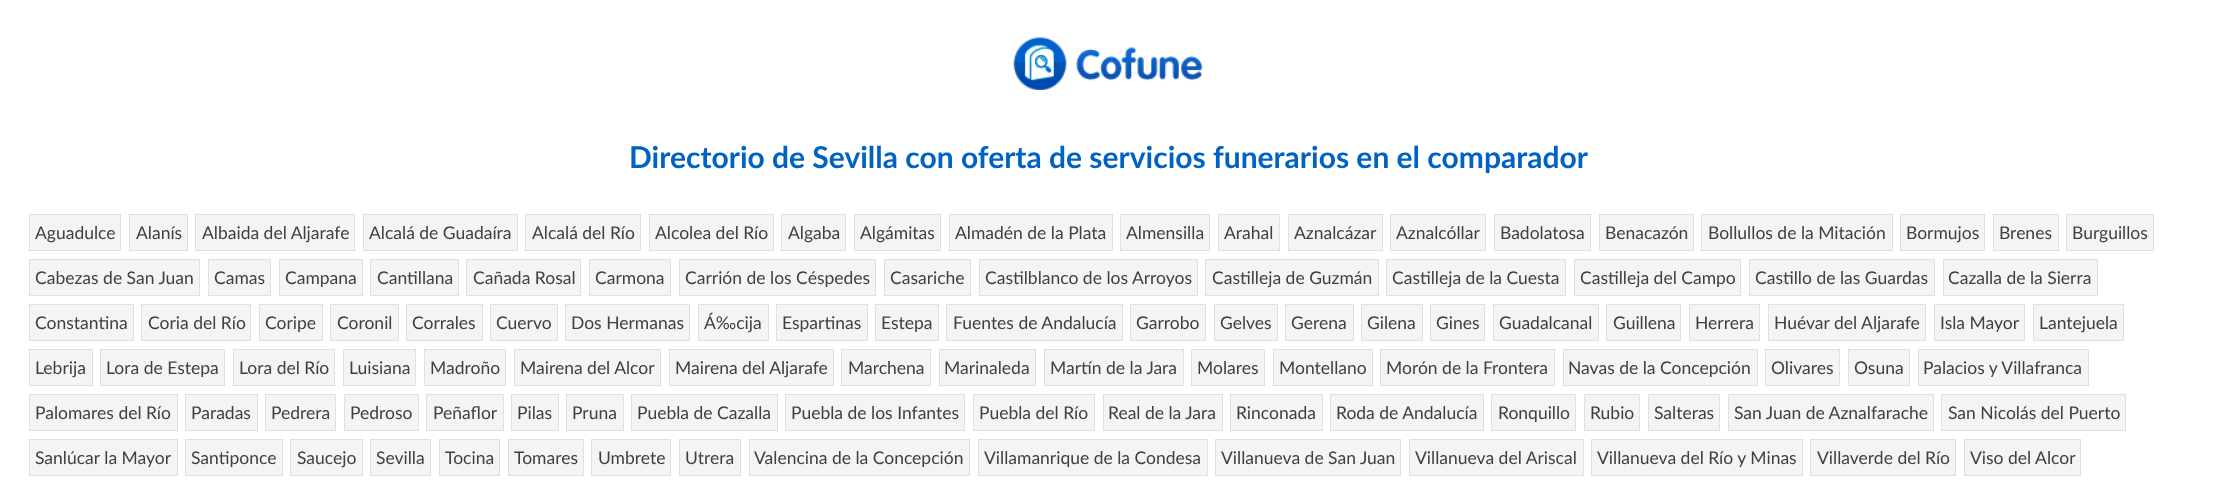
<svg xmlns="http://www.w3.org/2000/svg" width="2216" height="485">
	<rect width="100%" height="100%" fill="#FFFFFF" />
	<image x="1013" y="37" width="190" height="53" href="assets/img1.png" />
	<text x="629" y="168" font-family="Lato" font-size="30" font-weight="700" fill="#0063C4">Directorio de Sevilla con oferta de servicios funerarios en el comparador</text>
	<rect x="29.5" y="214.5" width="91" height="36" fill="#F4F4F4" stroke="#E0E0E0" />
	<text x="35" y="239" font-family="Lato" font-size="17.5" fill="#404040">Aguadulce</text>
	<rect x="129.5" y="214.5" width="58" height="36" fill="#F4F4F4" stroke="#E0E0E0" />
	<text x="136" y="239" font-family="Lato" font-size="17.5" fill="#404040">Alanís</text>
	<rect x="195.5" y="214.5" width="159" height="36" fill="#F4F4F4" stroke="#E0E0E0" />
	<text x="202" y="239" font-family="Lato" font-size="17.5" fill="#404040">Albaida del Aljarafe</text>
	<rect x="363.5" y="214.5" width="154" height="36" fill="#F4F4F4" stroke="#E0E0E0" />
	<text x="369" y="239" font-family="Lato" font-size="17.5" fill="#404040">Alcalá de Guadaíra</text>
	<rect x="525.5" y="214.5" width="115" height="36" fill="#F4F4F4" stroke="#E0E0E0" />
	<text x="532" y="239" font-family="Lato" font-size="17.5" fill="#404040">Alcalá del Río</text>
	<rect x="649.5" y="214.5" width="124" height="36" fill="#F4F4F4" stroke="#E0E0E0" />
	<text x="655" y="239" font-family="Lato" font-size="17.5" fill="#404040">Alcolea del Río</text>
	<rect x="781.5" y="214.5" width="64" height="36" fill="#F4F4F4" stroke="#E0E0E0" />
	<text x="788" y="239" font-family="Lato" font-size="17.5" fill="#404040">Algaba</text>
	<rect x="854.5" y="214.5" width="86" height="36" fill="#F4F4F4" stroke="#E0E0E0" />
	<text x="860" y="239" font-family="Lato" font-size="17.5" fill="#404040">Algámitas</text>
	<rect x="949.5" y="214.5" width="163" height="36" fill="#F4F4F4" stroke="#E0E0E0" />
	<text x="955" y="239" font-family="Lato" font-size="17.5" fill="#404040">Almadén de la Plata</text>
	<rect x="1120.5" y="214.5" width="89" height="36" fill="#F4F4F4" stroke="#E0E0E0" />
	<text x="1126" y="239" font-family="Lato" font-size="17.5" fill="#404040">Almensilla</text>
	<rect x="1218.5" y="214.5" width="61" height="36" fill="#F4F4F4" stroke="#E0E0E0" />
	<text x="1224" y="239" font-family="Lato" font-size="17.5" fill="#404040">Arahal</text>
	<rect x="1288.5" y="214.5" width="94" height="36" fill="#F4F4F4" stroke="#E0E0E0" />
	<text x="1294" y="239" font-family="Lato" font-size="17.5" fill="#404040">Aznalcázar</text>
	<rect x="1390.5" y="214.5" width="95" height="36" fill="#F4F4F4" stroke="#E0E0E0" />
	<text x="1396" y="239" font-family="Lato" font-size="17.5" fill="#404040">Aznalcóllar</text>
	<rect x="1494.5" y="214.5" width="96" height="36" fill="#F4F4F4" stroke="#E0E0E0" />
	<text x="1500" y="239" font-family="Lato" font-size="17.5" fill="#404040">Badolatosa</text>
	<rect x="1599.5" y="214.5" width="94" height="36" fill="#F4F4F4" stroke="#E0E0E0" />
	<text x="1605" y="239" font-family="Lato" font-size="17.5" fill="#404040">Benacazón</text>
	<rect x="1701.5" y="214.5" width="191" height="36" fill="#F4F4F4" stroke="#E0E0E0" />
	<text x="1708" y="239" font-family="Lato" font-size="17.5" fill="#404040">Bollullos de la Mitación</text>
	<rect x="1900.5" y="214.5" width="84" height="36" fill="#F4F4F4" stroke="#E0E0E0" />
	<text x="1906" y="239" font-family="Lato" font-size="17.5" fill="#404040">Bormujos</text>
	<rect x="1993.5" y="214.5" width="65" height="36" fill="#F4F4F4" stroke="#E0E0E0" />
	<text x="1999" y="239" font-family="Lato" font-size="17.5" fill="#404040">Brenes</text>
	<rect x="2066.5" y="214.5" width="87" height="36" fill="#F4F4F4" stroke="#E0E0E0" />
	<text x="2072" y="239" font-family="Lato" font-size="17.5" fill="#404040">Burguillos</text>
	<rect x="29.5" y="259.5" width="170" height="36" fill="#F4F4F4" stroke="#E0E0E0" />
	<text x="35" y="284" font-family="Lato" font-size="17.5" fill="#404040">Cabezas de San Juan</text>
	<rect x="208.5" y="259.5" width="62" height="36" fill="#F4F4F4" stroke="#E0E0E0" />
	<text x="214" y="284" font-family="Lato" font-size="17.5" fill="#404040">Camas</text>
	<rect x="279.5" y="259.5" width="83" height="36" fill="#F4F4F4" stroke="#E0E0E0" />
	<text x="285" y="284" font-family="Lato" font-size="17.5" fill="#404040">Campana</text>
	<rect x="370.5" y="259.5" width="88" height="36" fill="#F4F4F4" stroke="#E0E0E0" />
	<text x="377" y="284" font-family="Lato" font-size="17.5" fill="#404040">Cantillana</text>
	<rect x="466.5" y="259.5" width="114" height="36" fill="#F4F4F4" stroke="#E0E0E0" />
	<text x="473" y="284" font-family="Lato" font-size="17.5" fill="#404040">Cañada Rosal</text>
	<rect x="589.5" y="259.5" width="81" height="36" fill="#F4F4F4" stroke="#E0E0E0" />
	<text x="595" y="284" font-family="Lato" font-size="17.5" fill="#404040">Carmona</text>
	<rect x="679.5" y="259.5" width="196" height="36" fill="#F4F4F4" stroke="#E0E0E0" />
	<text x="685" y="284" font-family="Lato" font-size="17.5" fill="#404040">Carrión de los Céspedes</text>
	<rect x="884.5" y="259.5" width="86" height="36" fill="#F4F4F4" stroke="#E0E0E0" />
	<text x="890" y="284" font-family="Lato" font-size="17.5" fill="#404040">Casariche</text>
	<rect x="979.5" y="259.5" width="218" height="36" fill="#F4F4F4" stroke="#E0E0E0" />
	<text x="985" y="284" font-family="Lato" font-size="17.5" fill="#404040">Castilblanco de los Arroyos</text>
	<rect x="1205.5" y="259.5" width="173" height="36" fill="#F4F4F4" stroke="#E0E0E0" />
	<text x="1212" y="284" font-family="Lato" font-size="17.5" fill="#404040">Castilleja de Guzmán</text>
	<rect x="1386.5" y="259.5" width="179" height="36" fill="#F4F4F4" stroke="#E0E0E0" />
	<text x="1392" y="284" font-family="Lato" font-size="17.5" fill="#404040">Castilleja de la Cuesta</text>
	<rect x="1574.5" y="259.5" width="166" height="36" fill="#F4F4F4" stroke="#E0E0E0" />
	<text x="1580" y="284" font-family="Lato" font-size="17.5" fill="#404040">Castilleja del Campo</text>
	<rect x="1749.5" y="259.5" width="185" height="36" fill="#F4F4F4" stroke="#E0E0E0" />
	<text x="1755" y="284" font-family="Lato" font-size="17.5" fill="#404040">Castillo de las Guardas</text>
	<rect x="1943.5" y="259.5" width="154" height="36" fill="#F4F4F4" stroke="#E0E0E0" />
	<text x="1948" y="284" font-family="Lato" font-size="17.5" fill="#404040">Cazalla de la Sierra</text>
	<rect x="29.5" y="304.5" width="104" height="36" fill="#F4F4F4" stroke="#E0E0E0" />
	<text x="35" y="329" font-family="Lato" font-size="17.5" fill="#404040">Constantina</text>
	<rect x="141.5" y="304.5" width="109" height="36" fill="#F4F4F4" stroke="#E0E0E0" />
	<text x="148" y="329" font-family="Lato" font-size="17.5" fill="#404040">Coria del Río</text>
	<rect x="259.5" y="304.5" width="63" height="36" fill="#F4F4F4" stroke="#E0E0E0" />
	<text x="265" y="329" font-family="Lato" font-size="17.5" fill="#404040">Coripe</text>
	<rect x="330.5" y="304.5" width="68" height="36" fill="#F4F4F4" stroke="#E0E0E0" />
	<text x="337" y="329" font-family="Lato" font-size="17.5" fill="#404040">Coronil</text>
	<rect x="406.5" y="304.5" width="76" height="36" fill="#F4F4F4" stroke="#E0E0E0" />
	<text x="412" y="329" font-family="Lato" font-size="17.5" fill="#404040">Corrales</text>
	<rect x="490.5" y="304.5" width="67" height="36" fill="#F4F4F4" stroke="#E0E0E0" />
	<text x="496" y="329" font-family="Lato" font-size="17.5" fill="#404040">Cuervo</text>
	<rect x="565.5" y="304.5" width="124" height="36" fill="#F4F4F4" stroke="#E0E0E0" />
	<text x="571" y="329" font-family="Lato" font-size="17.5" fill="#404040">Dos Hermanas</text>
	<rect x="698.5" y="304.5" width="70" height="36" fill="#F4F4F4" stroke="#E0E0E0" />
	<text x="704" y="329" font-family="Lato" font-size="17.5" fill="#404040">Á‰cija</text>
	<rect x="776.5" y="304.5" width="91" height="36" fill="#F4F4F4" stroke="#E0E0E0" />
	<text x="782" y="329" font-family="Lato" font-size="17.5" fill="#404040">Espartinas</text>
	<rect x="875.5" y="304.5" width="63" height="36" fill="#F4F4F4" stroke="#E0E0E0" />
	<text x="881" y="329" font-family="Lato" font-size="17.5" fill="#404040">Estepa</text>
	<rect x="946.5" y="304.5" width="176" height="36" fill="#F4F4F4" stroke="#E0E0E0" />
	<text x="953" y="329" font-family="Lato" font-size="17.5" fill="#404040">Fuentes de Andalucía</text>
	<rect x="1130.5" y="304.5" width="75" height="36" fill="#F4F4F4" stroke="#E0E0E0" />
	<text x="1136" y="329" font-family="Lato" font-size="17.5" fill="#404040">Garrobo</text>
	<rect x="1214.5" y="304.5" width="63" height="36" fill="#F4F4F4" stroke="#E0E0E0" />
	<text x="1220" y="329" font-family="Lato" font-size="17.5" fill="#404040">Gelves</text>
	<rect x="1285.5" y="304.5" width="68" height="36" fill="#F4F4F4" stroke="#E0E0E0" />
	<text x="1291" y="329" font-family="Lato" font-size="17.5" fill="#404040">Gerena</text>
	<rect x="1361.5" y="304.5" width="61" height="36" fill="#F4F4F4" stroke="#E0E0E0" />
	<text x="1367" y="329" font-family="Lato" font-size="17.5" fill="#404040">Gilena</text>
	<rect x="1430.5" y="304.5" width="54" height="36" fill="#F4F4F4" stroke="#E0E0E0" />
	<text x="1436" y="329" font-family="Lato" font-size="17.5" fill="#404040">Gines</text>
	<rect x="1493.5" y="304.5" width="105" height="36" fill="#F4F4F4" stroke="#E0E0E0" />
	<text x="1499" y="329" font-family="Lato" font-size="17.5" fill="#404040">Guadalcanal</text>
	<rect x="1606.5" y="304.5" width="74" height="36" fill="#F4F4F4" stroke="#E0E0E0" />
	<text x="1613" y="329" font-family="Lato" font-size="17.5" fill="#404040">Guillena</text>
	<rect x="1689.5" y="304.5" width="70" height="36" fill="#F4F4F4" stroke="#E0E0E0" />
	<text x="1695" y="329" font-family="Lato" font-size="17.5" fill="#404040">Herrera</text>
	<rect x="1768.5" y="304.5" width="157" height="36" fill="#F4F4F4" stroke="#E0E0E0" />
	<text x="1774" y="329" font-family="Lato" font-size="17.5" fill="#404040">Huévar del Aljarafe</text>
	<rect x="1934.5" y="304.5" width="90" height="36" fill="#F4F4F4" stroke="#E0E0E0" />
	<text x="1940" y="329" font-family="Lato" font-size="17.5" fill="#404040">Isla Mayor</text>
	<rect x="2033.5" y="304.5" width="90" height="36" fill="#F4F4F4" stroke="#E0E0E0" />
	<text x="2039" y="329" font-family="Lato" font-size="17.5" fill="#404040">Lantejuela</text>
	<rect x="29.5" y="349.5" width="63" height="36" fill="#F4F4F4" stroke="#E0E0E0" />
	<text x="35" y="374" font-family="Lato" font-size="17.5" fill="#404040">Lebrija</text>
	<rect x="100.5" y="349.5" width="124" height="36" fill="#F4F4F4" stroke="#E0E0E0" />
	<text x="106" y="374" font-family="Lato" font-size="17.5" fill="#404040">Lora de Estepa</text>
	<rect x="233.5" y="349.5" width="101" height="36" fill="#F4F4F4" stroke="#E0E0E0" />
	<text x="239" y="374" font-family="Lato" font-size="17.5" fill="#404040">Lora del Río</text>
	<rect x="343.5" y="349.5" width="72" height="36" fill="#F4F4F4" stroke="#E0E0E0" />
	<text x="349" y="374" font-family="Lato" font-size="17.5" fill="#404040">Luisiana</text>
	<rect x="424.5" y="349.5" width="81" height="36" fill="#F4F4F4" stroke="#E0E0E0" />
	<text x="430" y="374" font-family="Lato" font-size="17.5" fill="#404040">Madroño</text>
	<rect x="514.5" y="349.5" width="146" height="36" fill="#F4F4F4" stroke="#E0E0E0" />
	<text x="520" y="374" font-family="Lato" font-size="17.5" fill="#404040">Mairena del Alcor</text>
	<rect x="669.5" y="349.5" width="164" height="36" fill="#F4F4F4" stroke="#E0E0E0" />
	<text x="675" y="374" font-family="Lato" font-size="17.5" fill="#404040">Mairena del Aljarafe</text>
	<rect x="841.5" y="349.5" width="89" height="36" fill="#F4F4F4" stroke="#E0E0E0" />
	<text x="848" y="374" font-family="Lato" font-size="17.5" fill="#404040">Marchena</text>
	<rect x="939.5" y="349.5" width="96" height="36" fill="#F4F4F4" stroke="#E0E0E0" />
	<text x="944" y="374" font-family="Lato" font-size="17.5" fill="#404040">Marinaleda</text>
	<rect x="1044.5" y="349.5" width="139" height="36" fill="#F4F4F4" stroke="#E0E0E0" />
	<text x="1050" y="374" font-family="Lato" font-size="17.5" fill="#404040">Martín de la Jara</text>
	<rect x="1191.5" y="349.5" width="73" height="36" fill="#F4F4F4" stroke="#E0E0E0" />
	<text x="1197" y="374" font-family="Lato" font-size="17.5" fill="#404040">Molares</text>
	<rect x="1273.5" y="349.5" width="99" height="36" fill="#F4F4F4" stroke="#E0E0E0" />
	<text x="1279" y="374" font-family="Lato" font-size="17.5" fill="#404040">Montellano</text>
	<rect x="1380.5" y="349.5" width="174" height="36" fill="#F4F4F4" stroke="#E0E0E0" />
	<text x="1386" y="374" font-family="Lato" font-size="17.5" fill="#404040">Morón de la Frontera</text>
	<rect x="1563.5" y="349.5" width="194" height="36" fill="#F4F4F4" stroke="#E0E0E0" />
	<text x="1568" y="374" font-family="Lato" font-size="17.5" fill="#404040">Navas de la Concepción</text>
	<rect x="1765.5" y="349.5" width="74" height="36" fill="#F4F4F4" stroke="#E0E0E0" />
	<text x="1771" y="374" font-family="Lato" font-size="17.5" fill="#404040">Olivares</text>
	<rect x="1848.5" y="349.5" width="61" height="36" fill="#F4F4F4" stroke="#E0E0E0" />
	<text x="1854" y="374" font-family="Lato" font-size="17.5" fill="#404040">Osuna</text>
	<rect x="1918.5" y="349.5" width="170" height="36" fill="#F4F4F4" stroke="#E0E0E0" />
	<text x="1923" y="374" font-family="Lato" font-size="17.5" fill="#404040">Palacios y Villafranca</text>
	<rect x="29.5" y="394.5" width="148" height="36" fill="#F4F4F4" stroke="#E0E0E0" />
	<text x="35" y="419" font-family="Lato" font-size="17.5" fill="#404040">Palomares del Río</text>
	<rect x="185.5" y="394.5" width="72" height="36" fill="#F4F4F4" stroke="#E0E0E0" />
	<text x="191" y="419" font-family="Lato" font-size="17.5" fill="#404040">Paradas</text>
	<rect x="265.5" y="394.5" width="70" height="36" fill="#F4F4F4" stroke="#E0E0E0" />
	<text x="271" y="419" font-family="Lato" font-size="17.5" fill="#404040">Pedrera</text>
	<rect x="344.5" y="394.5" width="74" height="36" fill="#F4F4F4" stroke="#E0E0E0" />
	<text x="350" y="419" font-family="Lato" font-size="17.5" fill="#404040">Pedroso</text>
	<rect x="426.5" y="394.5" width="77" height="36" fill="#F4F4F4" stroke="#E0E0E0" />
	<text x="433" y="419" font-family="Lato" font-size="17.5" fill="#404040">Peñaflor</text>
	<rect x="511.5" y="394.5" width="47" height="36" fill="#F4F4F4" stroke="#E0E0E0" />
	<text x="517" y="419" font-family="Lato" font-size="17.5" fill="#404040">Pilas</text>
	<rect x="566.5" y="394.5" width="57" height="36" fill="#F4F4F4" stroke="#E0E0E0" />
	<text x="572" y="419" font-family="Lato" font-size="17.5" fill="#404040">Pruna</text>
	<rect x="631.5" y="394.5" width="146" height="36" fill="#F4F4F4" stroke="#E0E0E0" />
	<text x="637" y="419" font-family="Lato" font-size="17.5" fill="#404040">Puebla de Cazalla</text>
	<rect x="785.5" y="394.5" width="179" height="36" fill="#F4F4F4" stroke="#E0E0E0" />
	<text x="791" y="419" font-family="Lato" font-size="17.5" fill="#404040">Puebla de los Infantes</text>
	<rect x="973.5" y="394.5" width="121" height="36" fill="#F4F4F4" stroke="#E0E0E0" />
	<text x="979" y="419" font-family="Lato" font-size="17.5" fill="#404040">Puebla del Río</text>
	<rect x="1103.5" y="394.5" width="119" height="36" fill="#F4F4F4" stroke="#E0E0E0" />
	<text x="1108" y="419" font-family="Lato" font-size="17.5" fill="#404040">Real de la Jara</text>
	<rect x="1230.5" y="394.5" width="92" height="36" fill="#F4F4F4" stroke="#E0E0E0" />
	<text x="1236" y="419" font-family="Lato" font-size="17.5" fill="#404040">Rinconada</text>
	<rect x="1330.5" y="394.5" width="153" height="36" fill="#F4F4F4" stroke="#E0E0E0" />
	<text x="1336" y="419" font-family="Lato" font-size="17.5" fill="#404040">Roda de Andalucía</text>
	<rect x="1491.5" y="394.5" width="84" height="36" fill="#F4F4F4" stroke="#E0E0E0" />
	<text x="1498" y="419" font-family="Lato" font-size="17.5" fill="#404040">Ronquillo</text>
	<rect x="1584.5" y="394.5" width="55" height="36" fill="#F4F4F4" stroke="#E0E0E0" />
	<text x="1590" y="419" font-family="Lato" font-size="17.5" fill="#404040">Rubio</text>
	<rect x="1648.5" y="394.5" width="71" height="36" fill="#F4F4F4" stroke="#E0E0E0" />
	<text x="1654" y="419" font-family="Lato" font-size="17.5" fill="#404040">Salteras</text>
	<rect x="1728.5" y="394.5" width="205" height="36" fill="#F4F4F4" stroke="#E0E0E0" />
	<text x="1734" y="419" font-family="Lato" font-size="17.5" fill="#404040">San Juan de Aznalfarache</text>
	<rect x="1941.5" y="394.5" width="184" height="36" fill="#F4F4F4" stroke="#E0E0E0" />
	<text x="1948" y="419" font-family="Lato" font-size="17.5" fill="#404040">San Nicolás del Puerto</text>
	<rect x="29.5" y="439.5" width="148" height="36" fill="#F4F4F4" stroke="#E0E0E0" />
	<text x="35" y="464" font-family="Lato" font-size="17.5" fill="#404040">Sanlúcar la Mayor</text>
	<rect x="185.5" y="439.5" width="97" height="36" fill="#F4F4F4" stroke="#E0E0E0" />
	<text x="191" y="464" font-family="Lato" font-size="17.5" fill="#404040">Santiponce</text>
	<rect x="290.5" y="439.5" width="72" height="36" fill="#F4F4F4" stroke="#E0E0E0" />
	<text x="297" y="464" font-family="Lato" font-size="17.5" fill="#404040">Saucejo</text>
	<rect x="370.5" y="439.5" width="60" height="36" fill="#F4F4F4" stroke="#E0E0E0" />
	<text x="376" y="464" font-family="Lato" font-size="17.5" fill="#404040">Sevilla</text>
	<rect x="439.5" y="439.5" width="60" height="36" fill="#F4F4F4" stroke="#E0E0E0" />
	<text x="445" y="464" font-family="Lato" font-size="17.5" fill="#404040">Tocina</text>
	<rect x="508.5" y="439.5" width="75" height="36" fill="#F4F4F4" stroke="#E0E0E0" />
	<text x="514" y="464" font-family="Lato" font-size="17.5" fill="#404040">Tomares</text>
	<rect x="591.5" y="439.5" width="79" height="36" fill="#F4F4F4" stroke="#E0E0E0" />
	<text x="598" y="464" font-family="Lato" font-size="17.5" fill="#404040">Umbrete</text>
	<rect x="679.5" y="439.5" width="61" height="36" fill="#F4F4F4" stroke="#E0E0E0" />
	<text x="685" y="464" font-family="Lato" font-size="17.5" fill="#404040">Utrera</text>
	<rect x="749.5" y="439.5" width="220" height="36" fill="#F4F4F4" stroke="#E0E0E0" />
	<text x="754" y="464" font-family="Lato" font-size="17.5" fill="#404040">Valencina de la Concepción</text>
	<rect x="978.5" y="439.5" width="229" height="36" fill="#F4F4F4" stroke="#E0E0E0" />
	<text x="984" y="464" font-family="Lato" font-size="17.5" fill="#404040">Villamanrique de la Condesa</text>
	<rect x="1215.5" y="439.5" width="185" height="36" fill="#F4F4F4" stroke="#E0E0E0" />
	<text x="1221" y="464" font-family="Lato" font-size="17.5" fill="#404040">Villanueva de San Juan</text>
	<rect x="1409.5" y="439.5" width="174" height="36" fill="#F4F4F4" stroke="#E0E0E0" />
	<text x="1415" y="464" font-family="Lato" font-size="17.5" fill="#404040">Villanueva del Ariscal</text>
	<rect x="1591.5" y="439.5" width="211" height="36" fill="#F4F4F4" stroke="#E0E0E0" />
	<text x="1597" y="464" font-family="Lato" font-size="17.5" fill="#404040">Villanueva del Río y Minas</text>
	<rect x="1810.5" y="439.5" width="145" height="36" fill="#F4F4F4" stroke="#E0E0E0" />
	<text x="1817" y="464" font-family="Lato" font-size="17.5" fill="#404040">Villaverde del Río</text>
	<rect x="1964.5" y="439.5" width="116" height="36" fill="#F4F4F4" stroke="#E0E0E0" />
	<text x="1970" y="464" font-family="Lato" font-size="17.5" fill="#404040">Viso del Alcor</text>
</svg>
